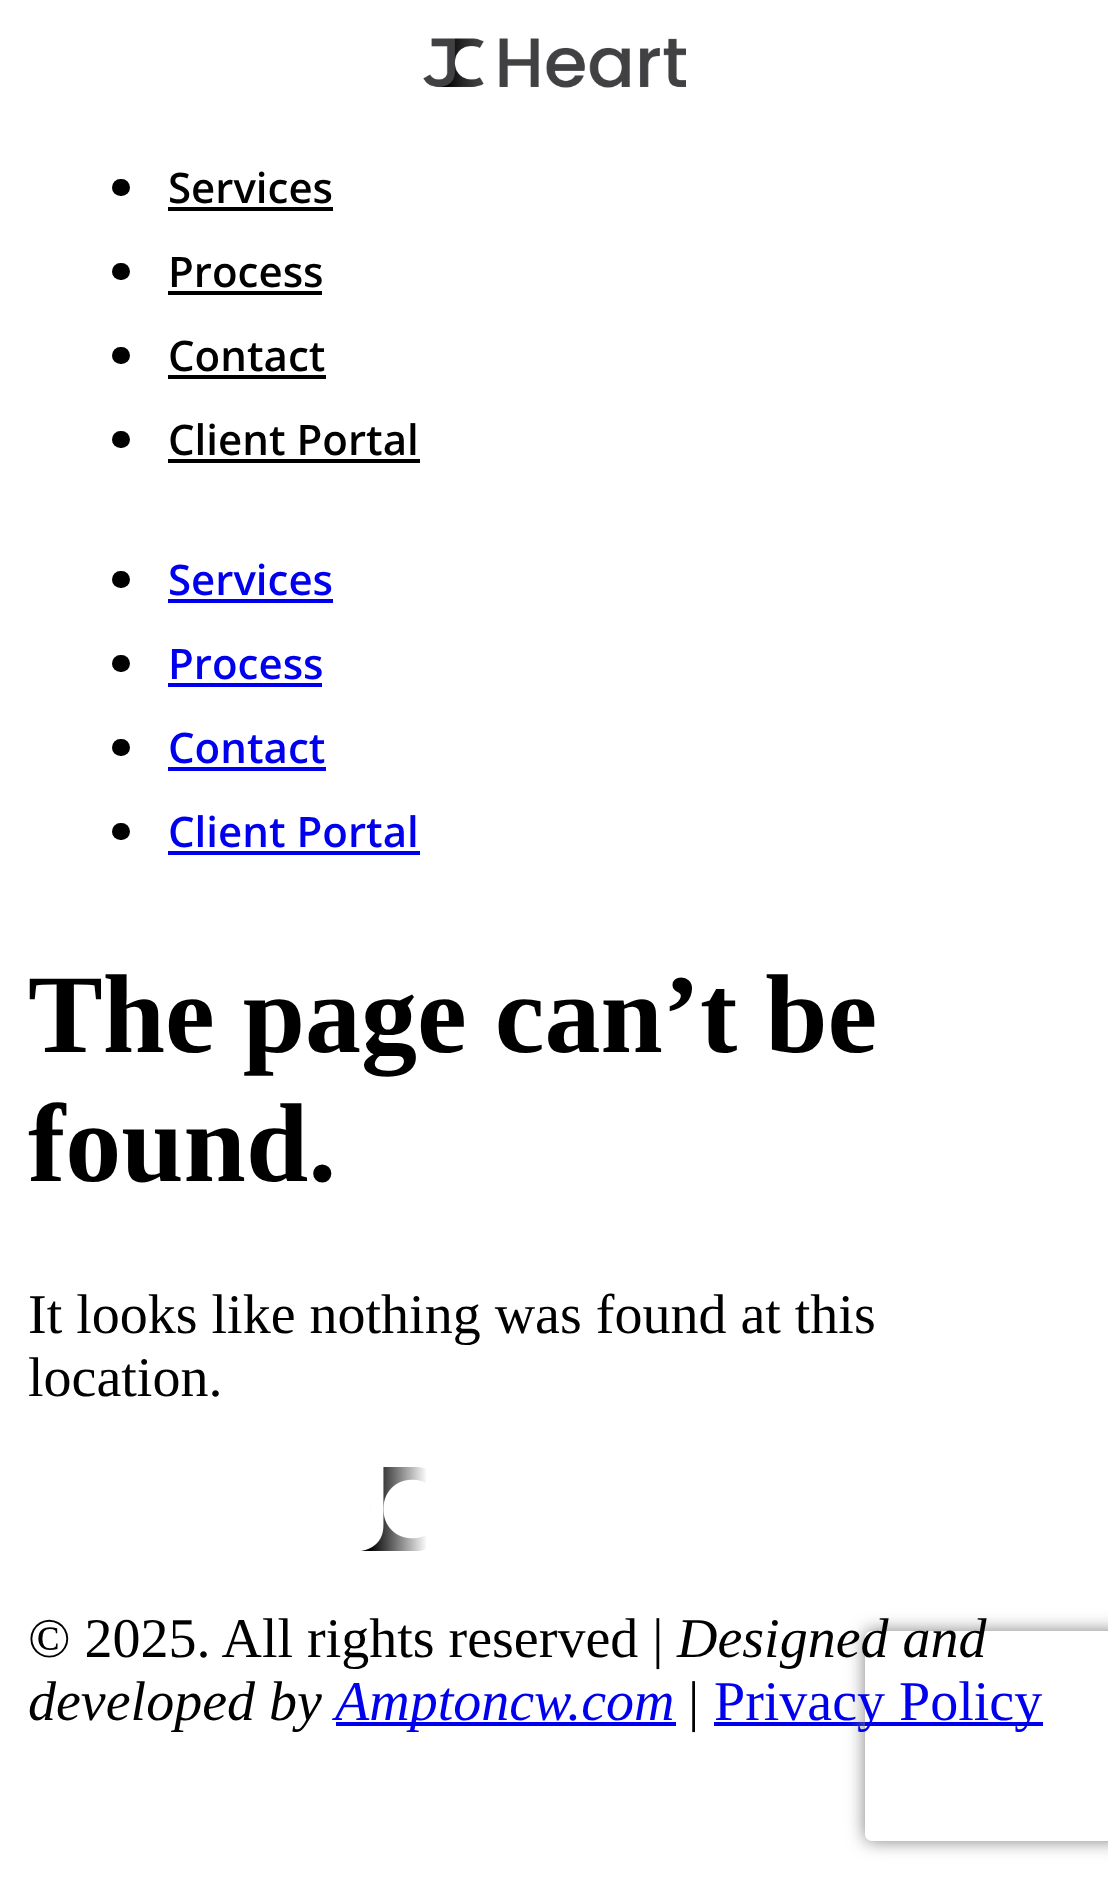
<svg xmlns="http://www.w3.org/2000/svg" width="1108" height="1889">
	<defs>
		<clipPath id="clip1"><path d="M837 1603H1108V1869H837ZM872 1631H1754C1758 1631 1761 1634 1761 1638V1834C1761 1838 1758 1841 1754 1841H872C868 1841 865 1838 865 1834V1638C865 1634 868 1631 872 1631Z" clip-rule="evenodd" /></clipPath>
	</defs>
	<rect width="100%" height="100%" fill="#FFFFFF" />
	<image x="423" y="38" width="263" height="50" href="assets/img1.png" />
	<rect x="112" y="179" width="18" height="17" rx="8.5" fill="#000000" />
	<text x="168" y="203" font-family="Open Sans" font-size="42" font-weight="600" fill="#000000">Services</text>
	<rect x="168" y="207" width="165" height="4" fill="#000000" />
	<rect x="112" y="263" width="18" height="17" rx="8.5" fill="#000000" />
	<text x="168" y="287" font-family="Open Sans" font-size="42" font-weight="600" fill="#000000">Process</text>
	<rect x="168" y="291" width="154" height="4" fill="#000000" />
	<rect x="112" y="347" width="18" height="17" rx="8.5" fill="#000000" />
	<text x="168" y="371" font-family="Open Sans" font-size="42" font-weight="600" fill="#000000">Contact</text>
	<rect x="168" y="375" width="158" height="4" fill="#000000" />
	<rect x="112" y="431" width="18" height="17" rx="8.5" fill="#000000" />
	<text x="168" y="455" font-family="Open Sans" font-size="42" font-weight="600" fill="#000000">Client Portal</text>
	<rect x="168" y="459" width="252" height="4" fill="#000000" />
	<rect x="112" y="571" width="18" height="17" rx="8.5" fill="#000000" />
	<text x="168" y="595" font-family="Open Sans" font-size="42" font-weight="600" fill="#0000EE">Services</text>
	<rect x="168" y="599" width="165" height="4" fill="#0000EE" />
	<rect x="112" y="655" width="18" height="17" rx="8.5" fill="#000000" />
	<text x="168" y="679" font-family="Open Sans" font-size="42" font-weight="600" fill="#0000EE">Process</text>
	<rect x="168" y="683" width="154" height="4" fill="#0000EE" />
	<rect x="112" y="739" width="18" height="17" rx="8.5" fill="#000000" />
	<text x="168" y="763" font-family="Open Sans" font-size="42" font-weight="600" fill="#0000EE">Contact</text>
	<rect x="168" y="767" width="158" height="4" fill="#0000EE" />
	<rect x="112" y="823" width="18" height="17" rx="8.5" fill="#000000" />
	<text x="168" y="847" font-family="Open Sans" font-size="42" font-weight="600" fill="#0000EE">Client Portal</text>
	<rect x="168" y="851" width="252" height="4" fill="#0000EE" />
	<g font-family="Liberation Serif" font-size="112" font-weight="700" fill="#000000">
		<text x="28" y="1052">The page can’t be</text>
		<text x="28" y="1181">found.</text>
	</g>
	<g font-family="Liberation Serif" font-size="56" fill="#000000">
		<text x="28" y="1333">It looks like nothing was found at this</text>
		<text x="28" y="1396">location.</text>
	</g>
	<rect x="714" y="1722" width="329" height="4" fill="#0000EE" />
	<g clip-path="url(#clip1)">
		<rect x="865" y="1631" width="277" height="210" rx="7" fill="#808080" filter="blur(9px)" />
	</g>
	<image x="361" y="1467" width="65" height="84" href="assets/img2.png" />
	<text x="28" y="1657" font-family="Liberation Serif" font-size="56" fill="#000000">© 2025. All rights reserved |</text>
	<g font-family="Liberation Serif" font-size="56" font-style="italic" fill="#000000">
		<text x="677" y="1657">Designed and</text>
		<text x="28" y="1720">developed by</text>
	</g>
	<rect x="336" y="1722" width="340" height="4" fill="#0000EE" />
	<text x="335" y="1720" font-family="Liberation Serif" font-size="56" font-style="italic" fill="#0000EE">Amptoncw.com</text>
	<text x="688" y="1720" font-family="Liberation Serif" font-size="56" fill="#000000">|</text>
	<text x="714" y="1720" font-family="Liberation Serif" font-size="56" fill="#0000EE">Privacy Policy</text>
</svg>
